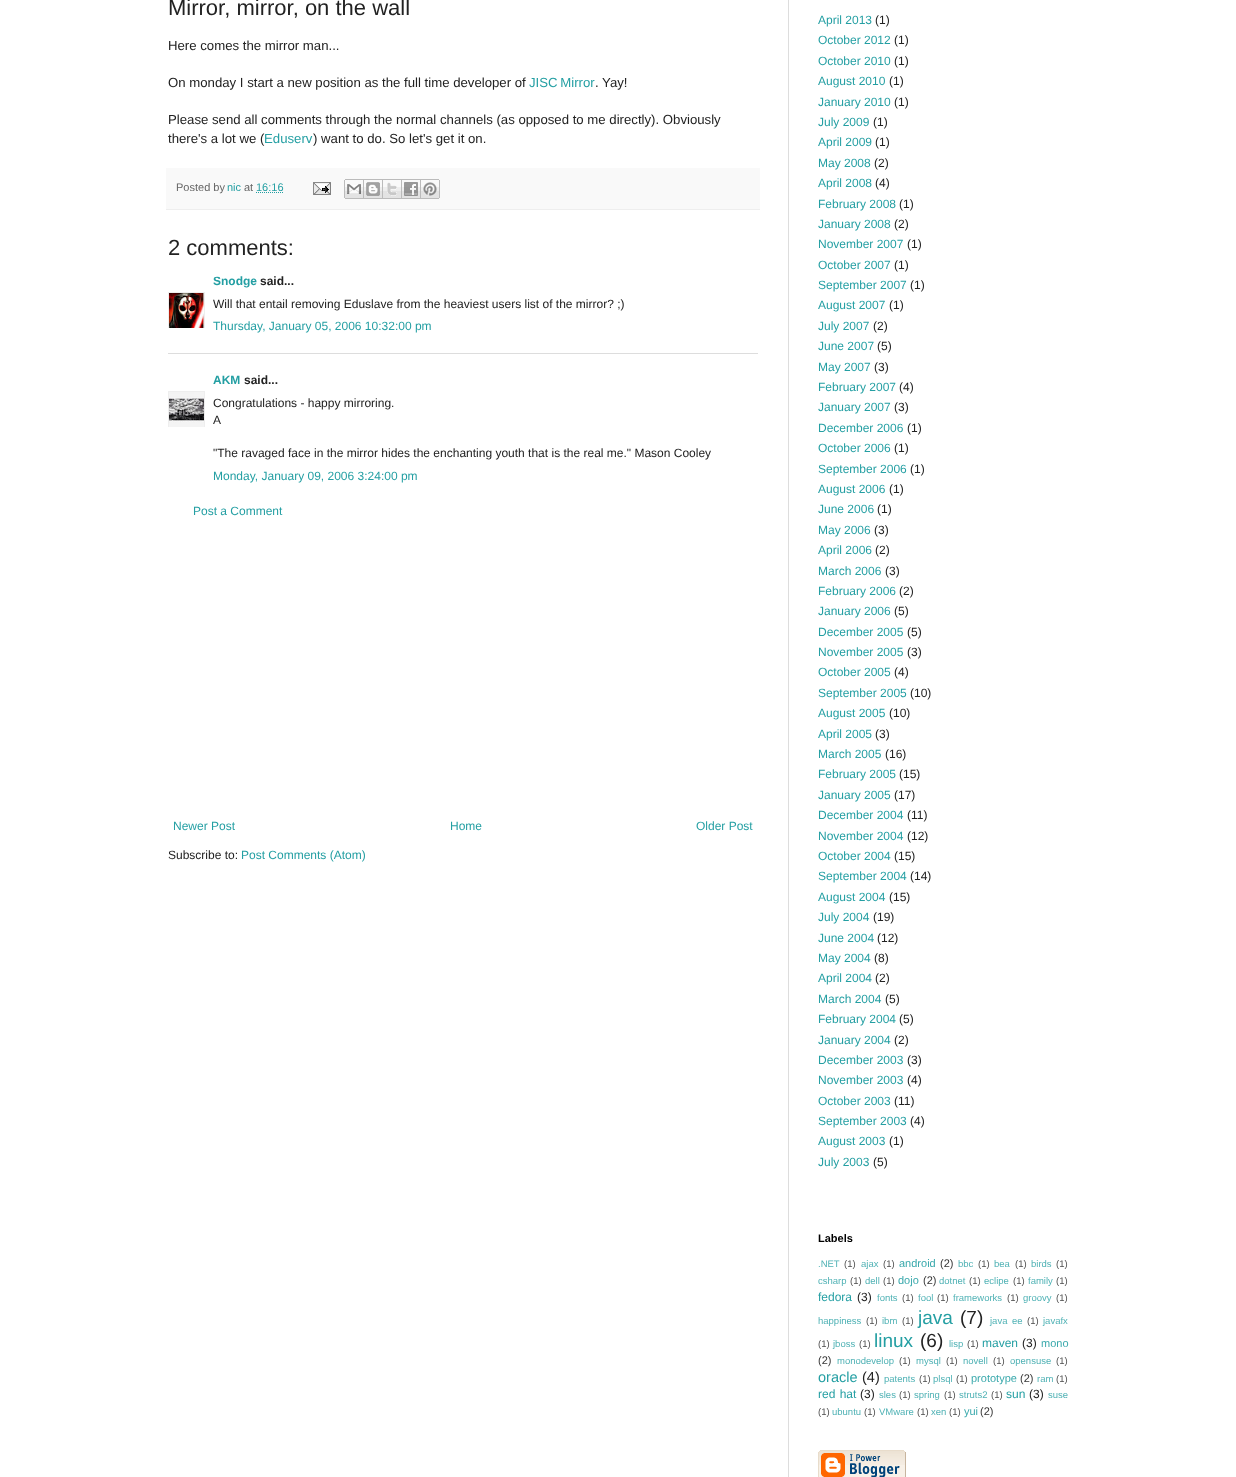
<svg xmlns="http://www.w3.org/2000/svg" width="1236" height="1477">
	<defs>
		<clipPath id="clip1"><rect x="168" y="292" width="37" height="36" /></clipPath>
		<clipPath id="clip2"><rect x="168" y="391" width="37" height="36" /></clipPath>
	</defs>
	<rect width="100%" height="100%" fill="#FFFFFF" />
	<text x="168" y="15" font-family="Liberation Sans" font-size="22" fill="#222222">Mirror, mirror, on the wall</text>
	<g font-family="Liberation Sans" font-size="13.2" fill="#222222">
		<text x="168" y="50">Here comes the mirror man...</text>
		<text x="168" y="87">On monday I start a new position as the full time developer of</text>
	</g>
	<text x="529" y="87" word-spacing="-1" font-family="Liberation Sans" font-size="13.2" fill="#249FA3">JISC Mirror</text>
	<g font-family="Liberation Sans" font-size="13.2" fill="#222222">
		<text x="595" y="87">. Yay!</text>
		<text x="168" y="124">Please send all comments through the normal channels (as opposed to me directly). Obviously</text>
		<text x="168" y="143">there's a lot we (</text>
	</g>
	<text x="264" y="143" font-family="Liberation Sans" font-size="13.2" fill="#249FA3">Eduserv</text>
	<text x="313" y="143" font-family="Liberation Sans" font-size="13.2" fill="#222222">) want to do. So let's get it on.</text>
	<rect x="166" y="168" width="594" height="41" fill="#F9F9F9" />
	<rect x="166" y="209" width="594" height="1" fill="#EEEEEE" />
	<text x="176" y="191" font-family="Liberation Sans" font-size="11" fill="#666666">Posted by</text>
	<text x="227" y="191" font-family="Liberation Sans" font-size="11" fill="#249FA3">nic</text>
	<text x="244" y="191" font-family="Liberation Sans" font-size="11" fill="#666666">at</text>
	<text x="256" y="191" font-family="Liberation Sans" font-size="11" fill="#249FA3">16:16</text>
	<path d="M256 192.5H283" fill="none" stroke="#249FA3" stroke-dasharray="1 1" />
	<image x="313" y="182" width="18" height="13" href="assets/img1.png" />
	<image x="344" y="179" width="20" height="20" href="assets/img2.png" />
	<image x="364" y="179" width="19" height="20" href="assets/img3.png" />
	<image x="383" y="179" width="19" height="20" href="assets/img4.png" />
	<image x="402" y="179" width="19" height="20" href="assets/img5.png" />
	<image x="421" y="179" width="19" height="20" href="assets/img6.png" />
	<text x="168" y="255" font-family="Liberation Sans" font-size="22" fill="#222222">2 comments:</text>
	<text x="213" y="285" font-family="Liberation Sans" font-size="12" font-weight="700" fill="#249FA3">Snodge</text>
	<text x="260" y="285" font-family="Liberation Sans" font-size="12" font-weight="700" fill="#222222">said...</text>
	<g clip-path="url(#clip1)">
		<rect x="168.5" y="292.5" width="36" height="36" fill="none" stroke="#EEEEEE" />
	</g>
	<image x="169" y="293" width="35" height="35" href="assets/img7.png" />
	<text x="213" y="308" font-family="Liberation Sans" font-size="12" fill="#222222">Will that entail removing Eduslave from the heaviest users list of the mirror? ;)</text>
	<text x="213" y="330" font-family="Liberation Sans" font-size="12" fill="#249FA3">Thursday, January 05, 2006 10:32:00 pm</text>
	<rect x="168" y="353" width="590" height="1" fill="#DDDDDD" />
	<text x="213" y="384" font-family="Liberation Sans" font-size="12" font-weight="700" fill="#249FA3">AKM</text>
	<text x="244" y="384" font-family="Liberation Sans" font-size="12" font-weight="700" fill="#222222">said...</text>
	<g clip-path="url(#clip2)">
		<rect x="168.5" y="391.5" width="36" height="36" fill="none" stroke="#EEEEEE" />
	</g>
	<image x="169" y="392" width="35" height="35" href="assets/img8.png" />
	<g font-family="Liberation Sans" font-size="12" fill="#222222">
		<text x="213" y="407">Congratulations - happy mirroring.</text>
		<text x="213" y="424">A</text>
		<text x="213" y="457">"The ravaged face in the mirror hides the enchanting youth that is the real me." Mason Cooley</text>
	</g>
	<g font-family="Liberation Sans" font-size="12" fill="#249FA3">
		<text x="213" y="480">Monday, January 09, 2006 3:24:00 pm</text>
		<text x="193" y="515">Post a Comment</text>
		<text x="173" y="830">Newer Post</text>
		<text x="450" y="830">Home</text>
		<text x="696" y="830">Older Post</text>
	</g>
	<text x="168" y="859" font-family="Liberation Sans" font-size="12" fill="#222222">Subscribe to:</text>
	<g font-family="Liberation Sans" font-size="12" fill="#249FA3">
		<text x="241" y="859">Post Comments (Atom)</text>
		<text x="818" y="24">April 2013</text>
	</g>
	<text x="875" y="24" font-family="Liberation Sans" font-size="12" fill="#222222">(1)</text>
	<text x="818" y="44" font-family="Liberation Sans" font-size="12" fill="#249FA3">October 2012</text>
	<text x="894" y="44" font-family="Liberation Sans" font-size="12" fill="#222222">(1)</text>
	<text x="818" y="65" font-family="Liberation Sans" font-size="12" fill="#249FA3">October 2010</text>
	<text x="894" y="65" font-family="Liberation Sans" font-size="12" fill="#222222">(1)</text>
	<text x="818" y="85" font-family="Liberation Sans" font-size="12" fill="#249FA3">August 2010</text>
	<text x="889" y="85" font-family="Liberation Sans" font-size="12" fill="#222222">(1)</text>
	<text x="818" y="106" font-family="Liberation Sans" font-size="12" fill="#249FA3">January 2010</text>
	<text x="894" y="106" font-family="Liberation Sans" font-size="12" fill="#222222">(1)</text>
	<text x="818" y="126" font-family="Liberation Sans" font-size="12" fill="#249FA3">July 2009</text>
	<text x="873" y="126" font-family="Liberation Sans" font-size="12" fill="#222222">(1)</text>
	<text x="818" y="146" font-family="Liberation Sans" font-size="12" fill="#249FA3">April 2009</text>
	<text x="875" y="146" font-family="Liberation Sans" font-size="12" fill="#222222">(1)</text>
	<text x="818" y="167" font-family="Liberation Sans" font-size="12" fill="#249FA3">May 2008</text>
	<text x="874" y="167" font-family="Liberation Sans" font-size="12" fill="#222222">(2)</text>
	<text x="818" y="187" font-family="Liberation Sans" font-size="12" fill="#249FA3">April 2008</text>
	<text x="875" y="187" font-family="Liberation Sans" font-size="12" fill="#222222">(4)</text>
	<text x="818" y="208" font-family="Liberation Sans" font-size="12" fill="#249FA3">February 2008</text>
	<text x="899" y="208" font-family="Liberation Sans" font-size="12" fill="#222222">(1)</text>
	<text x="818" y="228" font-family="Liberation Sans" font-size="12" fill="#249FA3">January 2008</text>
	<text x="894" y="228" font-family="Liberation Sans" font-size="12" fill="#222222">(2)</text>
	<text x="818" y="248" font-family="Liberation Sans" font-size="12" fill="#249FA3">November 2007</text>
	<text x="907" y="248" font-family="Liberation Sans" font-size="12" fill="#222222">(1)</text>
	<text x="818" y="269" font-family="Liberation Sans" font-size="12" fill="#249FA3">October 2007</text>
	<text x="894" y="269" font-family="Liberation Sans" font-size="12" fill="#222222">(1)</text>
	<text x="818" y="289" font-family="Liberation Sans" font-size="12" fill="#249FA3">September 2007</text>
	<text x="910" y="289" font-family="Liberation Sans" font-size="12" fill="#222222">(1)</text>
	<text x="818" y="309" font-family="Liberation Sans" font-size="12" fill="#249FA3">August 2007</text>
	<text x="889" y="309" font-family="Liberation Sans" font-size="12" fill="#222222">(1)</text>
	<text x="818" y="330" font-family="Liberation Sans" font-size="12" fill="#249FA3">July 2007</text>
	<text x="873" y="330" font-family="Liberation Sans" font-size="12" fill="#222222">(2)</text>
	<text x="818" y="350" font-family="Liberation Sans" font-size="12" fill="#249FA3">June 2007</text>
	<text x="877" y="350" font-family="Liberation Sans" font-size="12" fill="#222222">(5)</text>
	<text x="818" y="371" font-family="Liberation Sans" font-size="12" fill="#249FA3">May 2007</text>
	<text x="874" y="371" font-family="Liberation Sans" font-size="12" fill="#222222">(3)</text>
	<text x="818" y="391" font-family="Liberation Sans" font-size="12" fill="#249FA3">February 2007</text>
	<text x="899" y="391" font-family="Liberation Sans" font-size="12" fill="#222222">(4)</text>
	<text x="818" y="411" font-family="Liberation Sans" font-size="12" fill="#249FA3">January 2007</text>
	<text x="894" y="411" font-family="Liberation Sans" font-size="12" fill="#222222">(3)</text>
	<text x="818" y="432" font-family="Liberation Sans" font-size="12" fill="#249FA3">December 2006</text>
	<text x="907" y="432" font-family="Liberation Sans" font-size="12" fill="#222222">(1)</text>
	<text x="818" y="452" font-family="Liberation Sans" font-size="12" fill="#249FA3">October 2006</text>
	<text x="894" y="452" font-family="Liberation Sans" font-size="12" fill="#222222">(1)</text>
	<text x="818" y="473" font-family="Liberation Sans" font-size="12" fill="#249FA3">September 2006</text>
	<text x="910" y="473" font-family="Liberation Sans" font-size="12" fill="#222222">(1)</text>
	<text x="818" y="493" font-family="Liberation Sans" font-size="12" fill="#249FA3">August 2006</text>
	<text x="889" y="493" font-family="Liberation Sans" font-size="12" fill="#222222">(1)</text>
	<text x="818" y="513" font-family="Liberation Sans" font-size="12" fill="#249FA3">June 2006</text>
	<text x="877" y="513" font-family="Liberation Sans" font-size="12" fill="#222222">(1)</text>
	<text x="818" y="534" font-family="Liberation Sans" font-size="12" fill="#249FA3">May 2006</text>
	<text x="874" y="534" font-family="Liberation Sans" font-size="12" fill="#222222">(3)</text>
	<text x="818" y="554" font-family="Liberation Sans" font-size="12" fill="#249FA3">April 2006</text>
	<text x="875" y="554" font-family="Liberation Sans" font-size="12" fill="#222222">(2)</text>
	<text x="818" y="575" font-family="Liberation Sans" font-size="12" fill="#249FA3">March 2006</text>
	<text x="885" y="575" font-family="Liberation Sans" font-size="12" fill="#222222">(3)</text>
	<text x="818" y="595" font-family="Liberation Sans" font-size="12" fill="#249FA3">February 2006</text>
	<text x="899" y="595" font-family="Liberation Sans" font-size="12" fill="#222222">(2)</text>
	<text x="818" y="615" font-family="Liberation Sans" font-size="12" fill="#249FA3">January 2006</text>
	<text x="894" y="615" font-family="Liberation Sans" font-size="12" fill="#222222">(5)</text>
	<text x="818" y="636" font-family="Liberation Sans" font-size="12" fill="#249FA3">December 2005</text>
	<text x="907" y="636" font-family="Liberation Sans" font-size="12" fill="#222222">(5)</text>
	<text x="818" y="656" font-family="Liberation Sans" font-size="12" fill="#249FA3">November 2005</text>
	<text x="907" y="656" font-family="Liberation Sans" font-size="12" fill="#222222">(3)</text>
	<text x="818" y="676" font-family="Liberation Sans" font-size="12" fill="#249FA3">October 2005</text>
	<text x="894" y="676" font-family="Liberation Sans" font-size="12" fill="#222222">(4)</text>
	<text x="818" y="697" font-family="Liberation Sans" font-size="12" fill="#249FA3">September 2005</text>
	<text x="910" y="697" font-family="Liberation Sans" font-size="12" fill="#222222">(10)</text>
	<text x="818" y="717" font-family="Liberation Sans" font-size="12" fill="#249FA3">August 2005</text>
	<text x="889" y="717" font-family="Liberation Sans" font-size="12" fill="#222222">(10)</text>
	<text x="818" y="738" font-family="Liberation Sans" font-size="12" fill="#249FA3">April 2005</text>
	<text x="875" y="738" font-family="Liberation Sans" font-size="12" fill="#222222">(3)</text>
	<text x="818" y="758" font-family="Liberation Sans" font-size="12" fill="#249FA3">March 2005</text>
	<text x="885" y="758" font-family="Liberation Sans" font-size="12" fill="#222222">(16)</text>
	<text x="818" y="778" font-family="Liberation Sans" font-size="12" fill="#249FA3">February 2005</text>
	<text x="899" y="778" font-family="Liberation Sans" font-size="12" fill="#222222">(15)</text>
	<text x="818" y="799" font-family="Liberation Sans" font-size="12" fill="#249FA3">January 2005</text>
	<text x="894" y="799" font-family="Liberation Sans" font-size="12" fill="#222222">(17)</text>
	<text x="818" y="819" font-family="Liberation Sans" font-size="12" fill="#249FA3">December 2004</text>
	<text x="907" y="819" font-family="Liberation Sans" font-size="12" fill="#222222">(11)</text>
	<text x="818" y="840" font-family="Liberation Sans" font-size="12" fill="#249FA3">November 2004</text>
	<text x="907" y="840" font-family="Liberation Sans" font-size="12" fill="#222222">(12)</text>
	<text x="818" y="860" font-family="Liberation Sans" font-size="12" fill="#249FA3">October 2004</text>
	<text x="894" y="860" font-family="Liberation Sans" font-size="12" fill="#222222">(15)</text>
	<text x="818" y="880" font-family="Liberation Sans" font-size="12" fill="#249FA3">September 2004</text>
	<text x="910" y="880" font-family="Liberation Sans" font-size="12" fill="#222222">(14)</text>
	<text x="818" y="901" font-family="Liberation Sans" font-size="12" fill="#249FA3">August 2004</text>
	<text x="889" y="901" font-family="Liberation Sans" font-size="12" fill="#222222">(15)</text>
	<text x="818" y="921" font-family="Liberation Sans" font-size="12" fill="#249FA3">July 2004</text>
	<text x="873" y="921" font-family="Liberation Sans" font-size="12" fill="#222222">(19)</text>
	<text x="818" y="942" font-family="Liberation Sans" font-size="12" fill="#249FA3">June 2004</text>
	<text x="877" y="942" font-family="Liberation Sans" font-size="12" fill="#222222">(12)</text>
	<text x="818" y="962" font-family="Liberation Sans" font-size="12" fill="#249FA3">May 2004</text>
	<text x="874" y="962" font-family="Liberation Sans" font-size="12" fill="#222222">(8)</text>
	<text x="818" y="982" font-family="Liberation Sans" font-size="12" fill="#249FA3">April 2004</text>
	<text x="875" y="982" font-family="Liberation Sans" font-size="12" fill="#222222">(2)</text>
	<text x="818" y="1003" font-family="Liberation Sans" font-size="12" fill="#249FA3">March 2004</text>
	<text x="885" y="1003" font-family="Liberation Sans" font-size="12" fill="#222222">(5)</text>
	<text x="818" y="1023" font-family="Liberation Sans" font-size="12" fill="#249FA3">February 2004</text>
	<text x="899" y="1023" font-family="Liberation Sans" font-size="12" fill="#222222">(5)</text>
	<text x="818" y="1044" font-family="Liberation Sans" font-size="12" fill="#249FA3">January 2004</text>
	<text x="894" y="1044" font-family="Liberation Sans" font-size="12" fill="#222222">(2)</text>
	<text x="818" y="1064" font-family="Liberation Sans" font-size="12" fill="#249FA3">December 2003</text>
	<text x="907" y="1064" font-family="Liberation Sans" font-size="12" fill="#222222">(3)</text>
	<text x="818" y="1084" font-family="Liberation Sans" font-size="12" fill="#249FA3">November 2003</text>
	<text x="907" y="1084" font-family="Liberation Sans" font-size="12" fill="#222222">(4)</text>
	<text x="818" y="1105" font-family="Liberation Sans" font-size="12" fill="#249FA3">October 2003</text>
	<text x="894" y="1105" font-family="Liberation Sans" font-size="12" fill="#222222">(11)</text>
	<text x="818" y="1125" font-family="Liberation Sans" font-size="12" fill="#249FA3">September 2003</text>
	<text x="910" y="1125" font-family="Liberation Sans" font-size="12" fill="#222222">(4)</text>
	<text x="818" y="1145" font-family="Liberation Sans" font-size="12" fill="#249FA3">August 2003</text>
	<text x="889" y="1145" font-family="Liberation Sans" font-size="12" fill="#222222">(1)</text>
	<text x="818" y="1166" font-family="Liberation Sans" font-size="12" fill="#249FA3">July 2003</text>
	<text x="873" y="1166" font-family="Liberation Sans" font-size="12" fill="#222222">(5)</text>
	<text x="818" y="1242" font-family="Liberation Sans" font-size="11" font-weight="700" fill="#000000">Labels</text>
	<text x="818" y="1267" font-family="Liberation Sans" font-size="9.5" fill="#50B2B5">.NET</text>
	<text x="844" y="1267" font-family="Liberation Sans" font-size="9.5" fill="#4E4E4E">(1)</text>
	<text x="861" y="1267" font-family="Liberation Sans" font-size="9.5" fill="#50B2B5">ajax</text>
	<text x="883" y="1267" font-family="Liberation Sans" font-size="9.5" fill="#4E4E4E">(1)</text>
	<text x="899" y="1267" font-family="Liberation Sans" font-size="11" fill="#3AA9AC">android</text>
	<text x="940" y="1267" font-family="Liberation Sans" font-size="11" fill="#383838">(2)</text>
	<text x="958" y="1267" font-family="Liberation Sans" font-size="9.5" fill="#50B2B5">bbc</text>
	<text x="978" y="1267" font-family="Liberation Sans" font-size="9.5" fill="#4E4E4E">(1)</text>
	<text x="994" y="1267" font-family="Liberation Sans" font-size="9.5" fill="#50B2B5">bea</text>
	<text x="1015" y="1267" font-family="Liberation Sans" font-size="9.5" fill="#4E4E4E">(1)</text>
	<text x="1031" y="1267" font-family="Liberation Sans" font-size="9.5" fill="#50B2B5">birds</text>
	<text x="1056" y="1267" font-family="Liberation Sans" font-size="9.5" fill="#4E4E4E">(1)</text>
	<text x="818" y="1284" font-family="Liberation Sans" font-size="9.5" fill="#50B2B5">csharp</text>
	<text x="850" y="1284" font-family="Liberation Sans" font-size="9.5" fill="#4E4E4E">(1)</text>
	<text x="865" y="1284" font-family="Liberation Sans" font-size="9.5" fill="#50B2B5">dell</text>
	<text x="883" y="1284" font-family="Liberation Sans" font-size="9.5" fill="#4E4E4E">(1)</text>
	<text x="898" y="1284" font-family="Liberation Sans" font-size="11" fill="#3AA9AC">dojo</text>
	<text x="923" y="1284" font-family="Liberation Sans" font-size="11" fill="#383838">(2)</text>
	<text x="939" y="1284" font-family="Liberation Sans" font-size="9.5" fill="#50B2B5">dotnet</text>
	<text x="969" y="1284" font-family="Liberation Sans" font-size="9.5" fill="#4E4E4E">(1)</text>
	<text x="984" y="1284" font-family="Liberation Sans" font-size="9.5" fill="#50B2B5">eclipe</text>
	<text x="1013" y="1284" font-family="Liberation Sans" font-size="9.5" fill="#4E4E4E">(1)</text>
	<text x="1028" y="1284" font-family="Liberation Sans" font-size="9.5" fill="#50B2B5">family</text>
	<text x="1056" y="1284" font-family="Liberation Sans" font-size="9.5" fill="#4E4E4E">(1)</text>
	<text x="818" y="1301" font-family="Liberation Sans" font-size="12" fill="#249FA3">fedora</text>
	<text x="857" y="1301" font-family="Liberation Sans" font-size="12" fill="#222222">(3)</text>
	<text x="877" y="1301" font-family="Liberation Sans" font-size="9.5" fill="#50B2B5">fonts</text>
	<text x="902" y="1301" font-family="Liberation Sans" font-size="9.5" fill="#4E4E4E">(1)</text>
	<text x="918" y="1301" font-family="Liberation Sans" font-size="9.5" fill="#50B2B5">fool</text>
	<text x="937" y="1301" font-family="Liberation Sans" font-size="9.5" fill="#4E4E4E">(1)</text>
	<text x="953" y="1301" font-family="Liberation Sans" font-size="9.5" fill="#50B2B5">frameworks</text>
	<text x="1007" y="1301" font-family="Liberation Sans" font-size="9.5" fill="#4E4E4E">(1)</text>
	<text x="1023" y="1301" font-family="Liberation Sans" font-size="9.5" fill="#50B2B5">groovy</text>
	<text x="1056" y="1301" font-family="Liberation Sans" font-size="9.5" fill="#4E4E4E">(1)</text>
	<text x="818" y="1324" font-family="Liberation Sans" font-size="9.5" fill="#50B2B5">happiness</text>
	<text x="866" y="1324" font-family="Liberation Sans" font-size="9.5" fill="#4E4E4E">(1)</text>
	<text x="882" y="1324" font-family="Liberation Sans" font-size="9.5" fill="#50B2B5">ibm</text>
	<text x="902" y="1324" font-family="Liberation Sans" font-size="9.5" fill="#4E4E4E">(1)</text>
	<text x="918" y="1324" font-family="Liberation Sans" font-size="19" fill="#249FA3">java</text>
	<text x="960" y="1324" font-family="Liberation Sans" font-size="19" fill="#222222">(7)</text>
	<text x="990" y="1324" word-spacing="2" font-family="Liberation Sans" font-size="9.5" fill="#50B2B5">java ee</text>
	<text x="1027" y="1324" font-family="Liberation Sans" font-size="9.5" fill="#4E4E4E">(1)</text>
	<text x="1043" y="1324" font-family="Liberation Sans" font-size="9.5" fill="#50B2B5">javafx</text>
	<text x="818" y="1347" font-family="Liberation Sans" font-size="9.5" fill="#4E4E4E">(1)</text>
	<text x="833" y="1347" font-family="Liberation Sans" font-size="9.5" fill="#50B2B5">jboss</text>
	<text x="859" y="1347" font-family="Liberation Sans" font-size="9.5" fill="#4E4E4E">(1)</text>
	<text x="874" y="1347" font-family="Liberation Sans" font-size="19" fill="#249FA3">linux</text>
	<text x="920" y="1347" font-family="Liberation Sans" font-size="19" fill="#222222">(6)</text>
	<text x="949" y="1347" font-family="Liberation Sans" font-size="9.5" fill="#50B2B5">lisp</text>
	<text x="967" y="1347" font-family="Liberation Sans" font-size="9.5" fill="#4E4E4E">(1)</text>
	<text x="982" y="1347" font-family="Liberation Sans" font-size="12" fill="#249FA3">maven</text>
	<text x="1022" y="1347" font-family="Liberation Sans" font-size="12" fill="#222222">(3)</text>
	<text x="1041" y="1347" font-family="Liberation Sans" font-size="11" fill="#3AA9AC">mono</text>
	<text x="818" y="1364" font-family="Liberation Sans" font-size="11" fill="#383838">(2)</text>
	<text x="837" y="1364" font-family="Liberation Sans" font-size="9.5" fill="#50B2B5">monodevelop</text>
	<text x="899" y="1364" font-family="Liberation Sans" font-size="9.5" fill="#4E4E4E">(1)</text>
	<text x="916" y="1364" font-family="Liberation Sans" font-size="9.5" fill="#50B2B5">mysql</text>
	<text x="946" y="1364" font-family="Liberation Sans" font-size="9.5" fill="#4E4E4E">(1)</text>
	<text x="963" y="1364" font-family="Liberation Sans" font-size="9.5" fill="#50B2B5">novell</text>
	<text x="993" y="1364" font-family="Liberation Sans" font-size="9.5" fill="#4E4E4E">(1)</text>
	<text x="1010" y="1364" font-family="Liberation Sans" font-size="9.5" fill="#50B2B5">opensuse</text>
	<text x="1056" y="1364" font-family="Liberation Sans" font-size="9.5" fill="#4E4E4E">(1)</text>
	<text x="818" y="1382" font-family="Liberation Sans" font-size="14.5" fill="#249FA3">oracle</text>
	<text x="862" y="1382" font-family="Liberation Sans" font-size="14.5" fill="#222222">(4)</text>
	<text x="884" y="1382" font-family="Liberation Sans" font-size="9.5" fill="#50B2B5">patents</text>
	<text x="919" y="1382" font-family="Liberation Sans" font-size="9.5" fill="#4E4E4E">(1)</text>
	<text x="933" y="1382" font-family="Liberation Sans" font-size="9.5" fill="#50B2B5">plsql</text>
	<text x="956" y="1382" font-family="Liberation Sans" font-size="9.5" fill="#4E4E4E">(1)</text>
	<text x="971" y="1382" font-family="Liberation Sans" font-size="11" fill="#3AA9AC">prototype</text>
	<text x="1020" y="1382" font-family="Liberation Sans" font-size="11" fill="#383838">(2)</text>
	<text x="1037" y="1382" font-family="Liberation Sans" font-size="9.5" fill="#50B2B5">ram</text>
	<text x="1056" y="1382" font-family="Liberation Sans" font-size="9.5" fill="#4E4E4E">(1)</text>
	<text x="818" y="1398" word-spacing="1" font-family="Liberation Sans" font-size="12" fill="#249FA3">red hat</text>
	<text x="860" y="1398" font-family="Liberation Sans" font-size="12" fill="#222222">(3)</text>
	<text x="879" y="1398" font-family="Liberation Sans" font-size="9.5" fill="#50B2B5">sles</text>
	<text x="899" y="1398" font-family="Liberation Sans" font-size="9.5" fill="#4E4E4E">(1)</text>
	<text x="914" y="1398" font-family="Liberation Sans" font-size="9.5" fill="#50B2B5">spring</text>
	<text x="944" y="1398" font-family="Liberation Sans" font-size="9.5" fill="#4E4E4E">(1)</text>
	<text x="959" y="1398" font-family="Liberation Sans" font-size="9.5" fill="#50B2B5">struts2</text>
	<text x="991" y="1398" font-family="Liberation Sans" font-size="9.5" fill="#4E4E4E">(1)</text>
	<text x="1006" y="1398" font-family="Liberation Sans" font-size="12" fill="#249FA3">sun</text>
	<text x="1029" y="1398" font-family="Liberation Sans" font-size="12" fill="#222222">(3)</text>
	<text x="1048" y="1398" font-family="Liberation Sans" font-size="9.5" fill="#50B2B5">suse</text>
	<text x="818" y="1415" font-family="Liberation Sans" font-size="9.5" fill="#4E4E4E">(1)</text>
	<text x="832" y="1415" font-family="Liberation Sans" font-size="9.5" fill="#50B2B5">ubuntu</text>
	<text x="864" y="1415" font-family="Liberation Sans" font-size="9.5" fill="#4E4E4E">(1)</text>
	<text x="879" y="1415" font-family="Liberation Sans" font-size="9.5" fill="#50B2B5">VMware</text>
	<text x="917" y="1415" font-family="Liberation Sans" font-size="9.5" fill="#4E4E4E">(1)</text>
	<text x="931" y="1415" font-family="Liberation Sans" font-size="9.5" fill="#50B2B5">xen</text>
	<text x="949" y="1415" font-family="Liberation Sans" font-size="9.5" fill="#4E4E4E">(1)</text>
	<text x="964" y="1415" font-family="Liberation Sans" font-size="11" fill="#3AA9AC">yui</text>
	<text x="980" y="1415" font-family="Liberation Sans" font-size="11" fill="#383838">(2)</text>
	<image x="818" y="1450" width="88" height="27" href="assets/img9.png" />
	<rect x="788" y="0" width="1" height="1477" fill="#DDDDDD" />
</svg>
